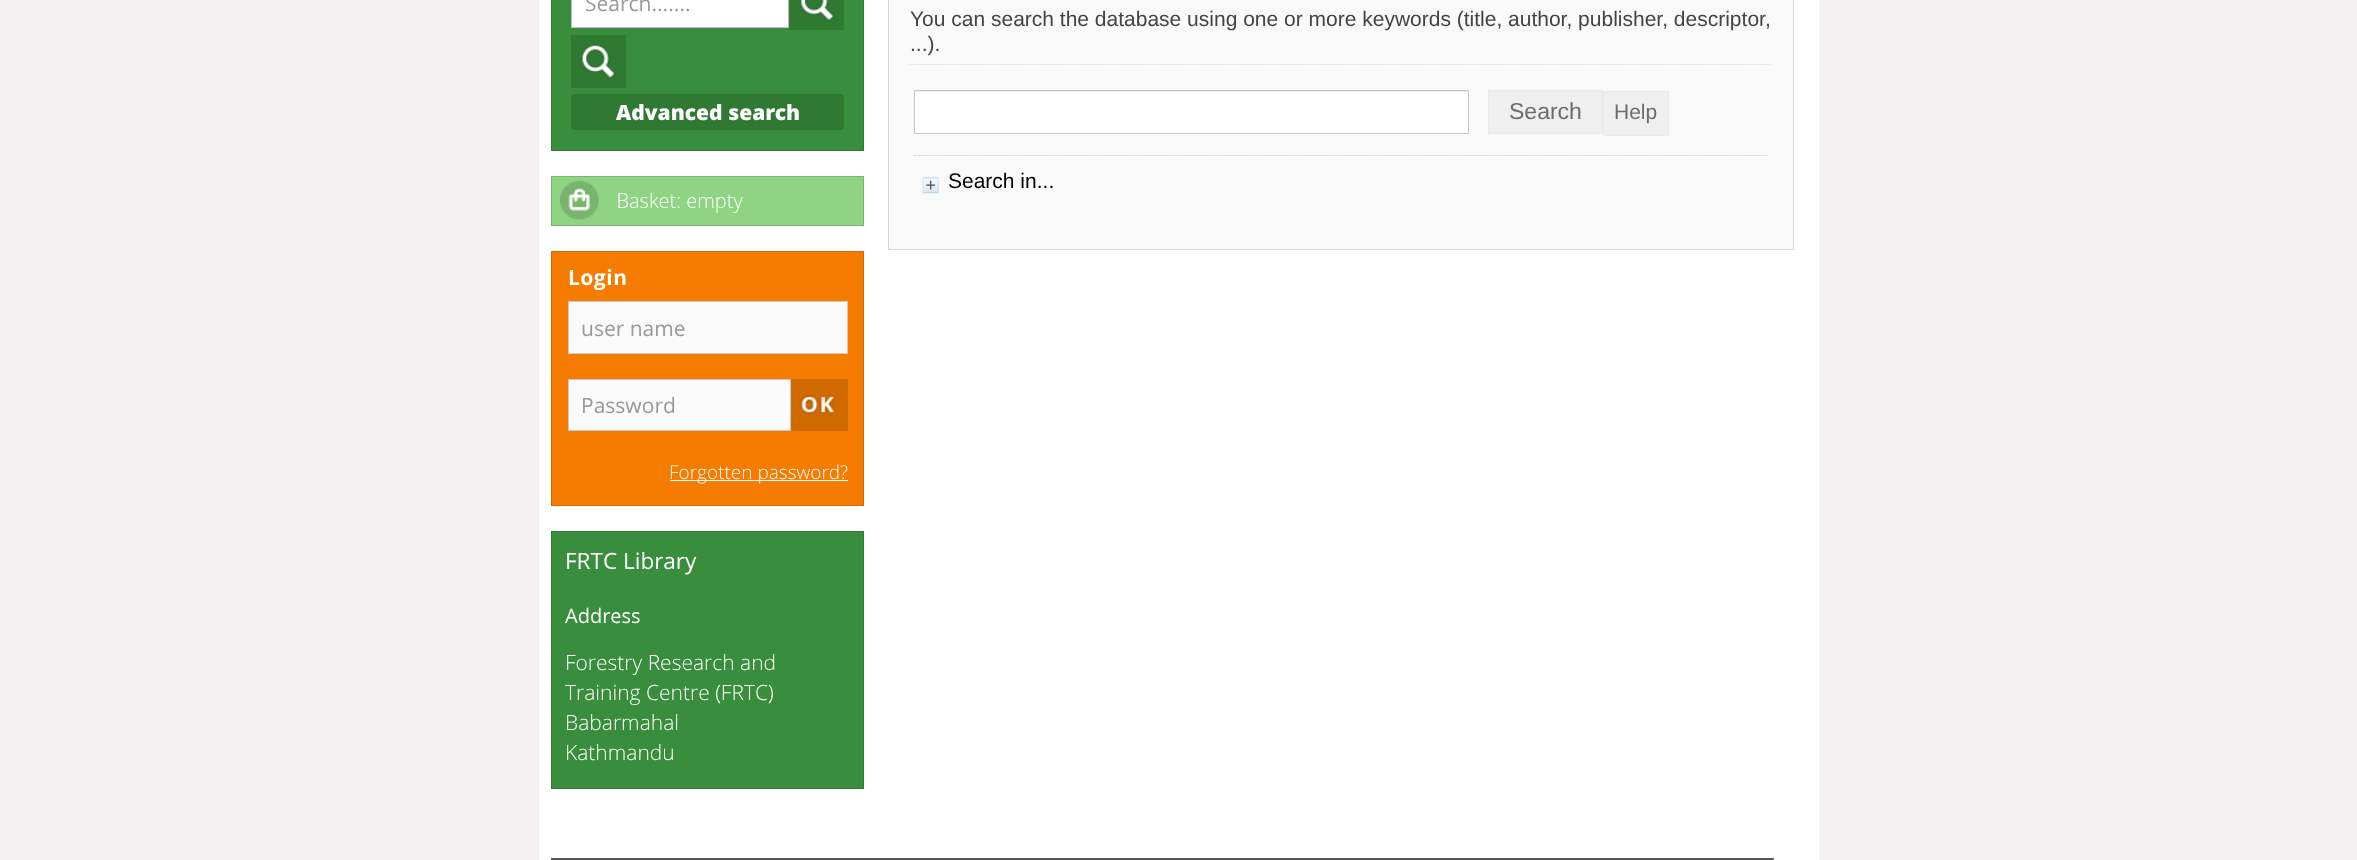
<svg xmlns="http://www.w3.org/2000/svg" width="2357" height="860">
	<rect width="100%" height="100%" fill="#F3F1F2" />
	<rect x="539" y="0" width="1280" height="860" fill="#FFFFFF" />
	<rect x="551.5" y="-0.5" width="312" height="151" fill="#388E3C" stroke="#307933" />
	<rect x="571.5" y="-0.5" width="217" height="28" fill="#FFFFFF" stroke="#BFBFBF" />
	<text x="585" y="11" font-family="Open Sans" font-size="21" fill="#999999">Search.......</text>
	<rect x="789" y="0" width="55" height="30" fill="#307933" />
	<image x="800" y="0" width="34" height="21" href="assets/img1.png" />
	<rect x="571" y="35" width="55" height="53" fill="#307933" />
	<image x="581" y="44" width="34" height="34" href="assets/img2.png" />
	<rect x="571" y="94" width="273" height="36" rx="4" fill="#307933" />
	<text x="616" y="120" font-family="Open Sans" font-size="21" font-weight="800" fill="#FFFFFF">Advanced search</text>
	<rect x="551.5" y="176.5" width="312" height="49" fill="#8FD483" stroke="#7BB671" />
	<image x="560" y="180" width="183" height="40" href="assets/img3.png" />
	<rect x="551.5" y="251.5" width="312" height="254" fill="#F57C00" stroke="#D06900" />
	<text x="568" y="285" font-family="Open Sans" font-size="21" font-weight="700" letter-spacing="0.5" fill="#FFFFFF">Login</text>
	<rect x="568.5" y="301.5" width="279" height="52" fill="#FAFAFA" stroke="#C8C8C8" />
	<text x="581" y="336" font-family="Open Sans" font-size="21" fill="#999999">user name</text>
	<rect x="568.5" y="379.5" width="222" height="51" fill="#FAFAFA" stroke="#C8C8C8" />
	<text x="581" y="413" font-family="Open Sans" font-size="21" fill="#999999">Password</text>
	<rect x="791" y="379" width="57" height="52" fill="#D06900" />
	<image x="800" y="395" width="35" height="19" href="assets/img4.png" />
	<rect x="670" y="480" width="178" height="1" fill="#FFFFFF" />
	<text x="669" y="479" font-family="Open Sans" font-size="19" font-weight="300" fill="#FFFFFF">Forgotten password?</text>
	<rect x="551.5" y="531.5" width="312" height="257" fill="#388E3C" stroke="#307933" />
	<text x="565" y="569" font-family="Open Sans" font-size="22.5" fill="#FFFFFF">FRTC Library</text>
	<text x="565" y="623" font-family="Open Sans" font-size="20" fill="#FFFFFF">Address</text>
	<g font-family="Open Sans" font-size="21" font-weight="300" fill="#FFFFFF">
		<text x="565" y="670">Forestry Research and</text>
		<text x="565" y="700">Training Centre (FRTC)</text>
		<text x="565" y="730">Babarmahal</text>
		<text x="565" y="760">Kathmandu</text>
	</g>
	<rect x="889" y="0" width="904" height="249" fill="#F9F9F9" />
	<rect x="1793" y="0" width="1" height="250" fill="#D7D7D7" />
	<rect x="888" y="0" width="1" height="71" fill="#D7D7D7" />
	<path d="M910 64.5H1771" fill="none" stroke="#DDDDDD" stroke-width="1.2" stroke-dasharray="1.25 1.25" />
	<g font-family="Liberation Sans" font-size="21" fill="#444444">
		<text x="910" y="26">You can search the database using one or more keywords (title, author, publisher, descriptor,</text>
		<text x="910" y="51">...).</text>
	</g>
	<rect x="888" y="249" width="906" height="1" fill="#D7D7D7" />
	<rect x="888" y="71" width="1" height="179" fill="#D7D7D7" />
	<rect x="915" y="92" width="553" height="41" fill="#FFFFFF" />
	<rect x="915" y="91" width="553" height="1" fill="#ECECEC" />
	<rect x="914.5" y="90.5" width="554" height="43" fill="none" stroke="#C8C8C8" />
	<rect x="1488.5" y="90.5" width="114" height="43" fill="#EFEFEF" stroke="#EAEAEA" />
	<text x="1509" y="119" font-family="Liberation Sans" font-size="23" fill="#6C6C6C">Search</text>
	<rect x="1603.5" y="91.5" width="65" height="44" fill="#EFEFEF" stroke="#EAEAEA" />
	<text x="1614" y="119" font-family="Liberation Sans" font-size="21" fill="#6C6C6C">Help</text>
	<path d="M914 155.5H1767.5" fill="none" stroke="#CCCCCC" stroke-width="1.2" stroke-dasharray="1.25 1.25" />
	<image x="922" y="177" width="17" height="17" href="assets/img5.png" />
	<text x="948" y="188" font-family="Liberation Sans" font-size="21" fill="#000000">Search in...</text>
	<rect x="551" y="858" width="1222" height="2" fill="#555555" />
	<rect x="1773" y="858" width="1" height="2" fill="#808080" />
</svg>
